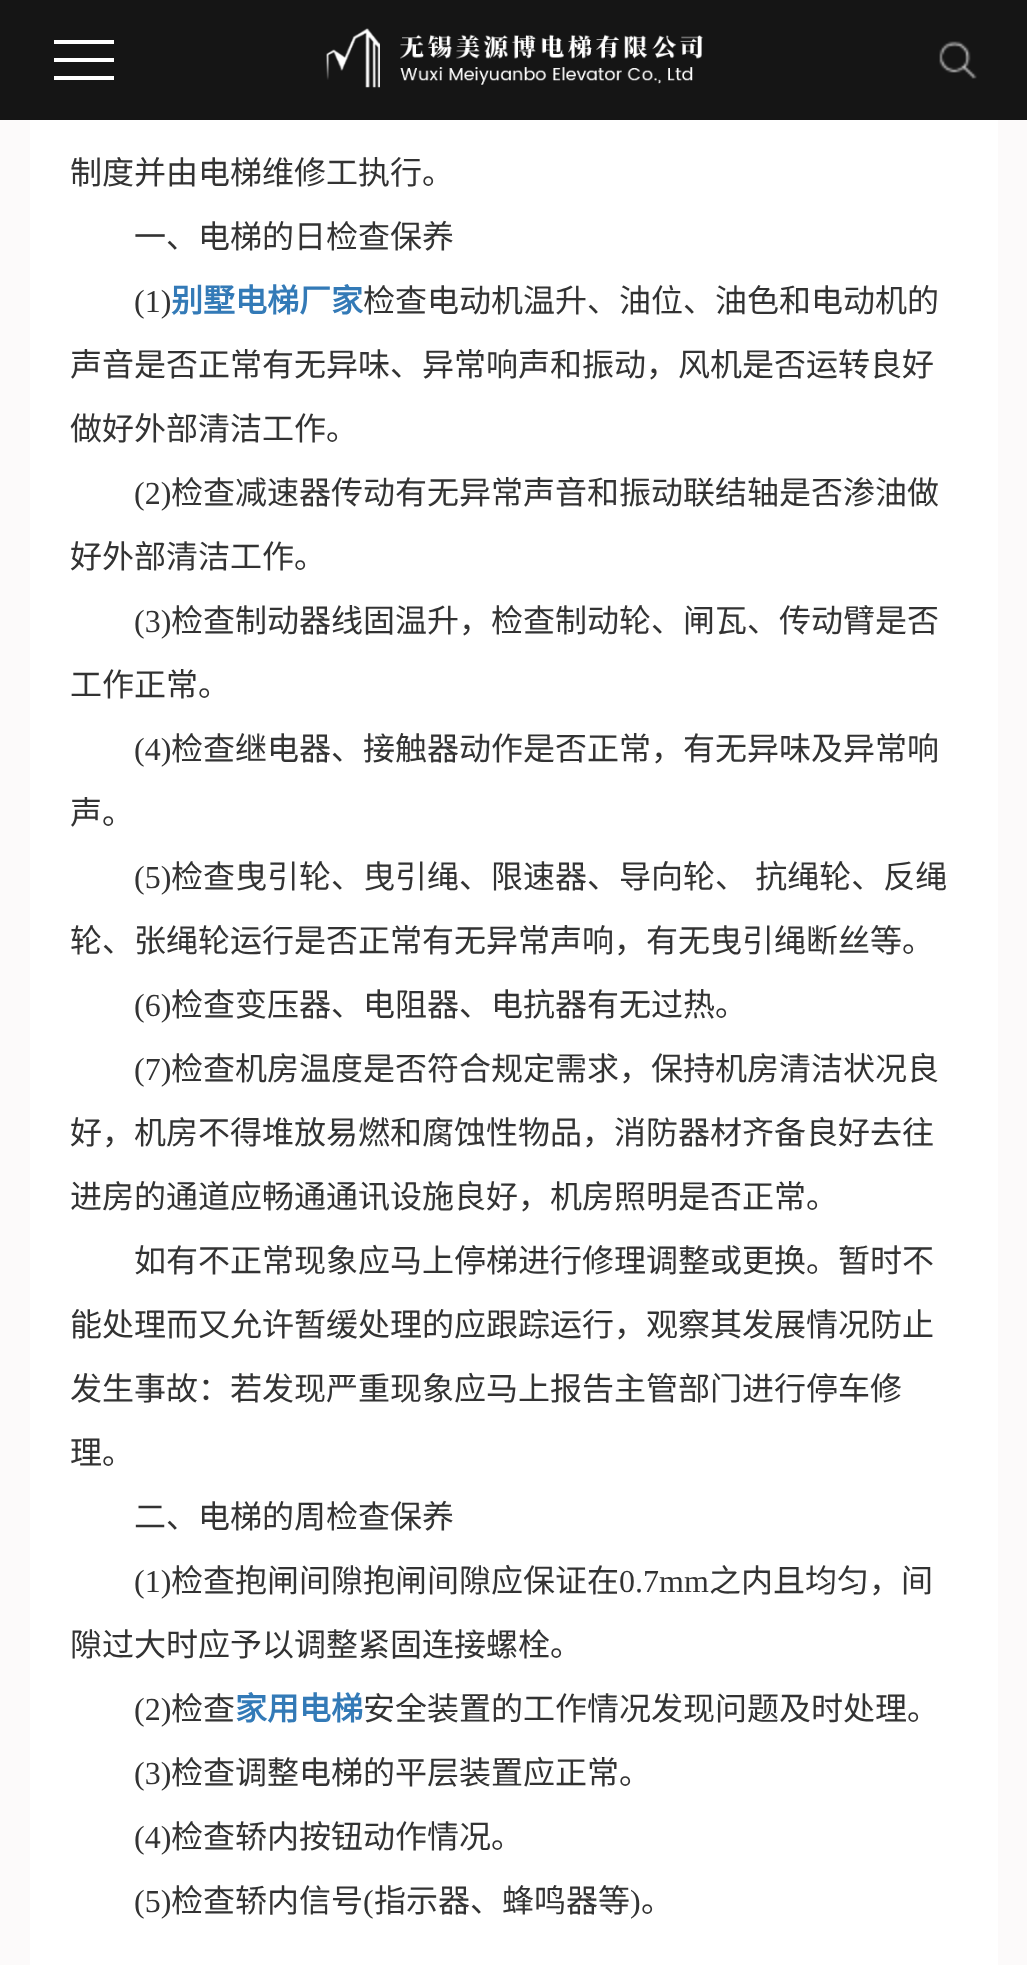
<svg xmlns="http://www.w3.org/2000/svg" width="1027" height="1965">
	<rect width="100%" height="100%" fill="#FCFAFA" />
	<rect x="0" y="0" width="1027" height="120" fill="#151515" />
	<rect x="54" y="40" width="60" height="4" fill="#FFFFFF" />
	<rect x="54" y="58" width="60" height="4" fill="#FFFFFF" />
	<rect x="54" y="76" width="60" height="4" fill="#FFFFFF" />
	<image x="326" y="28" width="377" height="60" href="assets/img1.png" />
	<image x="939" y="41" width="38" height="38" href="assets/img2.png" />
	<rect x="30" y="120" width="968" height="1845" fill="#FFFFFF" />
	<g font-family="Noto Sans CJK SC" font-size="32" fill="#333333">
		<text x="70" y="184">制度并由电梯维修工执行。</text>
		<text x="134" y="248">一、电梯的日检查保养</text>
	</g>
	<text x="134" y="312" font-family="Liberation Serif" font-size="32" fill="#333333">(1)</text>
	<text x="171" y="312" font-family="Noto Sans CJK SC" font-size="32" font-weight="700" fill="#337AB7">别墅电梯厂家</text>
	<g font-family="Noto Sans CJK SC" font-size="32" fill="#333333">
		<text x="363" y="312">检查电动机温升、油位、油色和电动机的</text>
		<text x="70" y="376">声音是否正常有无异味、异常响声和振动，风机是否运转良好</text>
		<text x="70" y="440">做好外部清洁工作。</text>
	</g>
	<text x="134" y="504" font-family="Liberation Serif" font-size="32" fill="#333333">(2)</text>
	<g font-family="Noto Sans CJK SC" font-size="32" fill="#333333">
		<text x="171" y="504">检查减速器传动有无异常声音和振动联结轴是否渗油做</text>
		<text x="70" y="568">好外部清洁工作。</text>
	</g>
	<text x="134" y="632" font-family="Liberation Serif" font-size="32" fill="#333333">(3)</text>
	<g font-family="Noto Sans CJK SC" font-size="32" fill="#333333">
		<text x="171" y="632">检查制动器线固温升，检查制动轮、闸瓦、传动臂是否</text>
		<text x="70" y="696">工作正常。</text>
	</g>
	<text x="134" y="760" font-family="Liberation Serif" font-size="32" fill="#333333">(4)</text>
	<g font-family="Noto Sans CJK SC" font-size="32" fill="#333333">
		<text x="171" y="760">检查继电器、接触器动作是否正常，有无异味及异常响</text>
		<text x="70" y="824">声。</text>
	</g>
	<text x="134" y="888" font-family="Liberation Serif" font-size="32" fill="#333333">(5)</text>
	<g font-family="Noto Sans CJK SC" font-size="32" fill="#333333">
		<text x="171" y="888" word-spacing="1">检查曳引轮、曳引绳、限速器、导向轮、 抗绳轮、反绳</text>
		<text x="70" y="952">轮、张绳轮运行是否正常有无异常声响，有无曳引绳断丝等。</text>
	</g>
	<text x="134" y="1016" font-family="Liberation Serif" font-size="32" fill="#333333">(6)</text>
	<text x="171" y="1016" font-family="Noto Sans CJK SC" font-size="32" fill="#333333">检查变压器、电阻器、电抗器有无过热。</text>
	<text x="134" y="1080" font-family="Liberation Serif" font-size="32" fill="#333333">(7)</text>
	<g font-family="Noto Sans CJK SC" font-size="32" fill="#333333">
		<text x="171" y="1080">检查机房温度是否符合规定需求，保持机房清洁状况良</text>
		<text x="70" y="1144">好，机房不得堆放易燃和腐蚀性物品，消防器材齐备良好去往</text>
		<text x="70" y="1208">进房的通道应畅通通讯设施良好，机房照明是否正常。</text>
		<text x="134" y="1272">如有不正常现象应马上停梯进行修理调整或更换。暂时不</text>
		<text x="70" y="1336">能处理而又允许暂缓处理的应跟踪运行，观察其发展情况防止</text>
		<text x="70" y="1400">发生事故：若发现严重现象应马上报告主管部门进行停车修</text>
		<text x="70" y="1464">理。</text>
		<text x="134" y="1528">二、电梯的周检查保养</text>
	</g>
	<text x="134" y="1592" font-family="Liberation Serif" font-size="32" fill="#333333">(1)</text>
	<text x="171" y="1592" font-family="Noto Sans CJK SC" font-size="32" fill="#333333">检查抱闸间隙抱闸间隙应保证在</text>
	<text x="619" y="1592" font-family="Liberation Serif" font-size="32" fill="#333333">0.7mm</text>
	<g font-family="Noto Sans CJK SC" font-size="32" fill="#333333">
		<text x="709" y="1592">之内且均匀，间</text>
		<text x="70" y="1656">隙过大时应予以调整紧固连接螺栓。</text>
	</g>
	<text x="134" y="1720" font-family="Liberation Serif" font-size="32" fill="#333333">(2)</text>
	<text x="171" y="1720" font-family="Noto Sans CJK SC" font-size="32" fill="#333333">检查</text>
	<text x="235" y="1720" font-family="Noto Sans CJK SC" font-size="32" font-weight="700" fill="#337AB7">家用电梯</text>
	<text x="363" y="1720" font-family="Noto Sans CJK SC" font-size="32" fill="#333333">安全装置的工作情况发现问题及时处理。</text>
	<text x="134" y="1784" font-family="Liberation Serif" font-size="32" fill="#333333">(3)</text>
	<text x="171" y="1784" font-family="Noto Sans CJK SC" font-size="32" fill="#333333">检查调整电梯的平层装置应正常。</text>
	<text x="134" y="1848" font-family="Liberation Serif" font-size="32" fill="#333333">(4)</text>
	<text x="171" y="1848" font-family="Noto Sans CJK SC" font-size="32" fill="#333333">检查轿内按钮动作情况。</text>
	<text x="134" y="1912" font-family="Liberation Serif" font-size="32" fill="#333333">(5)</text>
	<text x="171" y="1912" font-family="Noto Sans CJK SC" font-size="32" fill="#333333">检查轿内信号</text>
	<text x="363" y="1912" font-family="Liberation Serif" font-size="32" fill="#333333">(</text>
	<text x="374" y="1912" font-family="Noto Sans CJK SC" font-size="32" fill="#333333">指示器、蜂鸣器等</text>
	<text x="630" y="1912" font-family="Liberation Serif" font-size="32" fill="#333333">)</text>
	<text x="641" y="1912" font-family="Noto Sans CJK SC" font-size="32" fill="#333333">。</text>
</svg>
